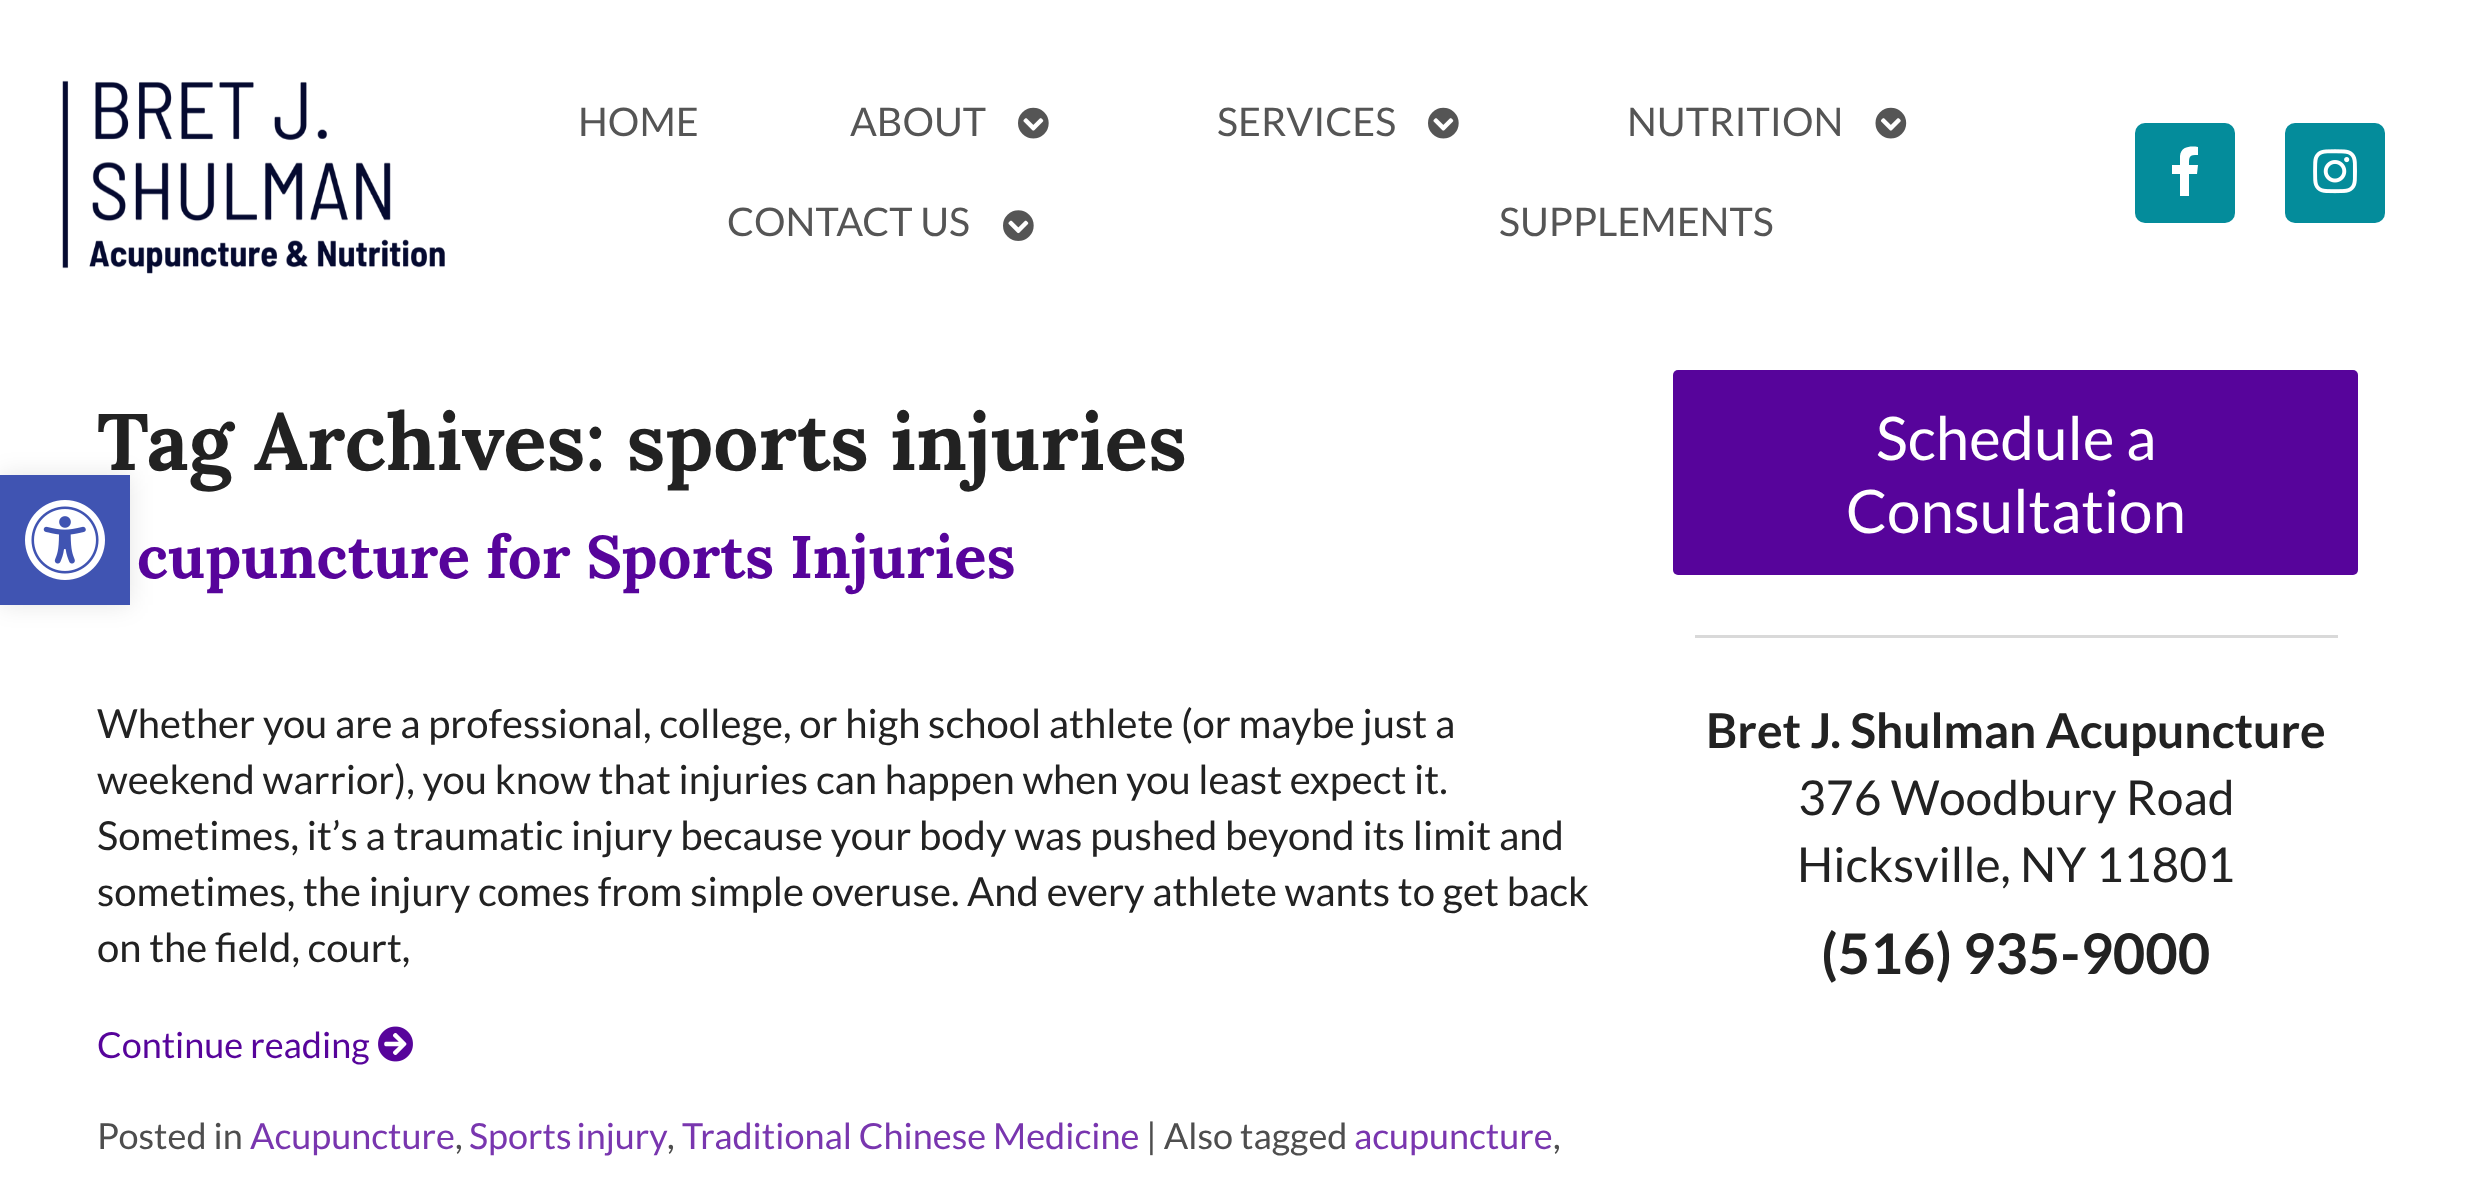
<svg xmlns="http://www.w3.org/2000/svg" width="2469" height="1190">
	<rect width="100%" height="100%" fill="#FFFFFF" />
	<rect x="0" y="475" width="130" height="130" fill="#000000" fill-opacity="0.1" filter="blur(12.5px)" />
	<text x="97" y="470" font-family="Lora" font-size="80" font-weight="700" fill="#222222">Tag Archives: sports injuries</text>
	<rect x="0" y="475" width="130" height="130" fill="#4054B2" />
	<image x="25" y="500" width="80" height="80" href="assets/img1.png" />
	<image x="62" y="80" width="383" height="194" href="assets/img2.png" />
	<g font-family="Lato" font-size="39.5" fill="#555555">
		<text x="578" y="136">HOME</text>
		<text x="850" y="136">ABOUT</text>
	</g>
	<image x="1018" y="107" width="31" height="32" href="assets/img3.png" />
	<text x="1217" y="136" font-family="Lato" font-size="39.5" fill="#555555">SERVICES</text>
	<image x="1428" y="107" width="31" height="32" href="assets/img3.png" />
	<text x="1627" y="136" font-family="Lato" font-size="39.5" fill="#555555">NUTRITION</text>
	<image x="1875" y="107" width="32" height="32" href="assets/img4.png" />
	<text x="727" y="236" font-family="Lato" font-size="39.5" fill="#555555">CONTACT US</text>
	<image x="1003" y="210" width="31" height="31" href="assets/img5.png" />
	<text x="1499" y="236" font-family="Lato" font-size="39.5" fill="#555555">SUPPLEMENTS</text>
	<rect x="2135" y="123" width="100" height="100" rx="10" fill="#048C9B" />
	<path d="M2197 174H2189V196H2180V174H2172V165H2180V156C2181 146 2191 146 2198 147V155C2189 155 2189 156 2189 165H2198Z" fill="#FFFFFF" />
	<rect x="2285" y="123" width="100" height="100" rx="10" fill="#048C9B" />
	<image x="2313" y="149" width="44" height="45" href="assets/img6.png" />
	<text x="137" y="578" font-family="Lora" font-size="60" font-weight="700" fill="#57049B">cupuncture for Sports Injuries</text>
	<g font-family="Lato" font-size="40" fill="#222222">
		<text x="97" y="738">Whether you are a professional, college, or high school athlete (or maybe just a</text>
		<text x="97" y="794">weekend warrior), you know that injuries can happen when you least expect it.</text>
		<text x="97" y="850">Sometimes, it’s a traumatic injury because your body was pushed beyond its limit and</text>
		<text x="97" y="906">sometimes, the injury comes from simple overuse. And every athlete wants to get back</text>
		<text x="97" y="962">on the field, court,</text>
	</g>
	<text x="97" y="1058" font-family="Lato" font-size="36" fill="#57049B">Continue reading</text>
	<image x="378" y="1026" width="35" height="36" href="assets/img7.png" />
	<text x="97" y="1149" font-family="Lato" font-size="36" fill="#4E4E4E">Posted in</text>
	<text x="250" y="1149" font-family="Lato" font-size="36" fill="#7936AF">Acupuncture</text>
	<text x="455" y="1149" font-family="Lato" font-size="36" fill="#4E4E4E">,</text>
	<text x="469" y="1149" word-spacing="-2" font-family="Lato" font-size="36" fill="#7936AF">Sports injury</text>
	<text x="667" y="1149" font-family="Lato" font-size="36" fill="#4E4E4E">,</text>
	<text x="682" y="1149" font-family="Lato" font-size="36" fill="#7936AF">Traditional Chinese Medicine</text>
	<text x="1146" y="1149" font-family="Lato" font-size="36" fill="#4E4E4E">| Also tagged</text>
	<text x="1354" y="1149" font-family="Lato" font-size="36" fill="#7936AF">acupuncture</text>
	<text x="1553" y="1149" font-family="Lato" font-size="36" fill="#4E4E4E">,</text>
	<rect x="1673" y="370" width="685" height="205" rx="5" fill="#57049B" />
	<g font-family="Lato" font-size="60" fill="#FFFFFF">
		<text x="1876" y="460">Schedule a</text>
		<text x="1846" y="533">Consultation</text>
	</g>
	<rect x="1695" y="635" width="643" height="3" fill="#D9D9D9" />
	<text x="1706" y="748" font-family="Lato" font-size="48" font-weight="700" fill="#222222">Bret J. Shulman Acupuncture</text>
	<g font-family="Lato" font-size="48" fill="#222222">
		<text x="1798" y="815">376 Woodbury Road</text>
		<text x="1797" y="882">Hicksville, NY 11801</text>
	</g>
	<text x="1821" y="974" font-family="Lato" font-size="56" font-weight="700" fill="#222222">(516) 935-9000</text>
</svg>
